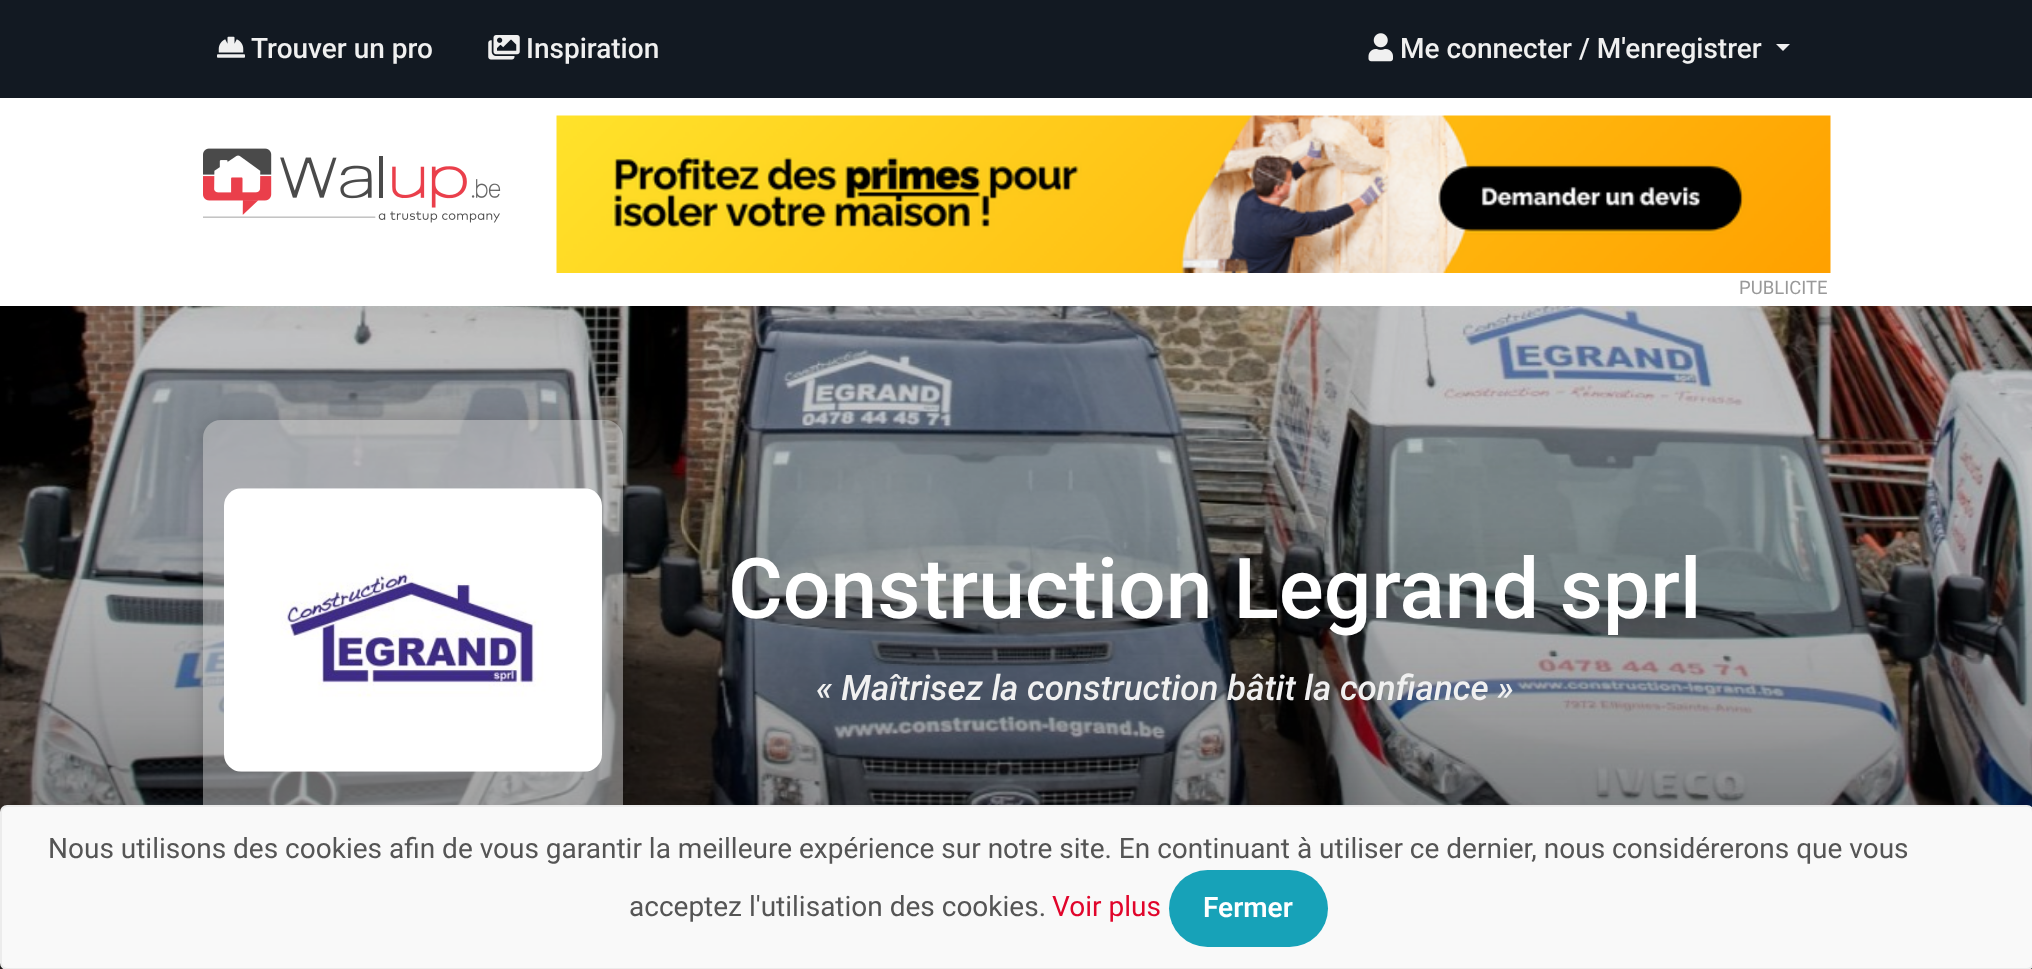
<svg xmlns="http://www.w3.org/2000/svg" width="2032" height="969">
	<defs>
		<clipPath id="clip1"><path d="M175 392H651V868H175ZM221 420H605C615 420 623 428 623 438V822C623 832 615 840 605 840H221C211 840 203 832 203 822V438C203 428 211 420 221 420Z" clip-rule="evenodd" /></clipPath>
	</defs>
	<rect width="100%" height="100%" fill="#FFFFFF" />
	<rect x="0" y="0" width="2032" height="98" fill="#121922" />
	<image x="217" y="36" width="28" height="22" href="assets/img1.png" />
	<text x="251" y="58" font-family="Roboto" font-size="28" font-weight="500" fill="#F0F0F0">Trouver un pro</text>
	<image x="488" y="35" width="32" height="25" href="assets/img2.png" />
	<text x="526" y="58" font-family="Roboto" font-size="28" font-weight="500" fill="#F0F0F0">Inspiration</text>
	<image x="1368" y="33" width="25" height="29" href="assets/img3.png" />
	<text x="1400" y="58" font-family="Roboto" font-size="28" font-weight="500" fill="#F0F0F0">Me connecter / M'enregistrer</text>
	<path d="M1776 44H1790L1783 51Z" fill="#F0F0F0" />
	<image x="203" y="148" width="298" height="75" href="assets/img4.png" />
	<image x="556" y="115" width="1275" height="158" href="assets/img5.png" />
	<text x="1739" y="294" font-family="Roboto" font-size="18.5" fill="#999999">PUBLICITE</text>
	<image x="0" y="306" width="2032" height="663" href="assets/img6.png" />
	<g clip-path="url(#clip1)">
		<rect x="203" y="420" width="420" height="420" rx="18" fill="#000000" fill-opacity="0.2" filter="blur(9px)" />
	</g>
	<rect x="203" y="420" width="420" height="420" rx="18" fill="#C8C8C8" fill-opacity="0.5" />
	<image x="224" y="488" width="378" height="284" href="assets/img7.png" />
	<text x="728" y="618" font-family="Roboto" font-size="84" font-weight="500" fill="#FFFFFF">Construction Legrand sprl</text>
	<text x="816" y="700" font-family="Roboto" font-size="35" font-weight="500" font-style="italic" fill="#F0F0F0">« Maîtrisez la construction bâtit la confiance »</text>
	<rect x="0" y="963" width="2032" height="6" fill="#141414" fill-opacity="0.4" />
	<rect x="1" y="806" width="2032" height="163" rx="6" fill="#F9F9F9" stroke="#ECECEC" stroke-width="2" />
	<g font-family="Roboto" font-size="28" fill="#555555">
		<text x="48" y="858">Nous utilisons des cookies afin de vous garantir la meilleure expérience sur notre site. En continuant à utiliser ce dernier, nous considérerons que vous</text>
		<text x="629" y="916">acceptez l'utilisation des cookies.</text>
	</g>
	<text x="1052" y="916" font-family="Roboto" font-size="28" fill="#E1052B">Voir plus</text>
	<rect x="1169" y="870" width="159" height="77" rx="38.5" fill="#17A2B8" />
	<text x="1203" y="917" font-family="Roboto" font-size="28" font-weight="600" fill="#FFFFFF">Fermer</text>
</svg>
